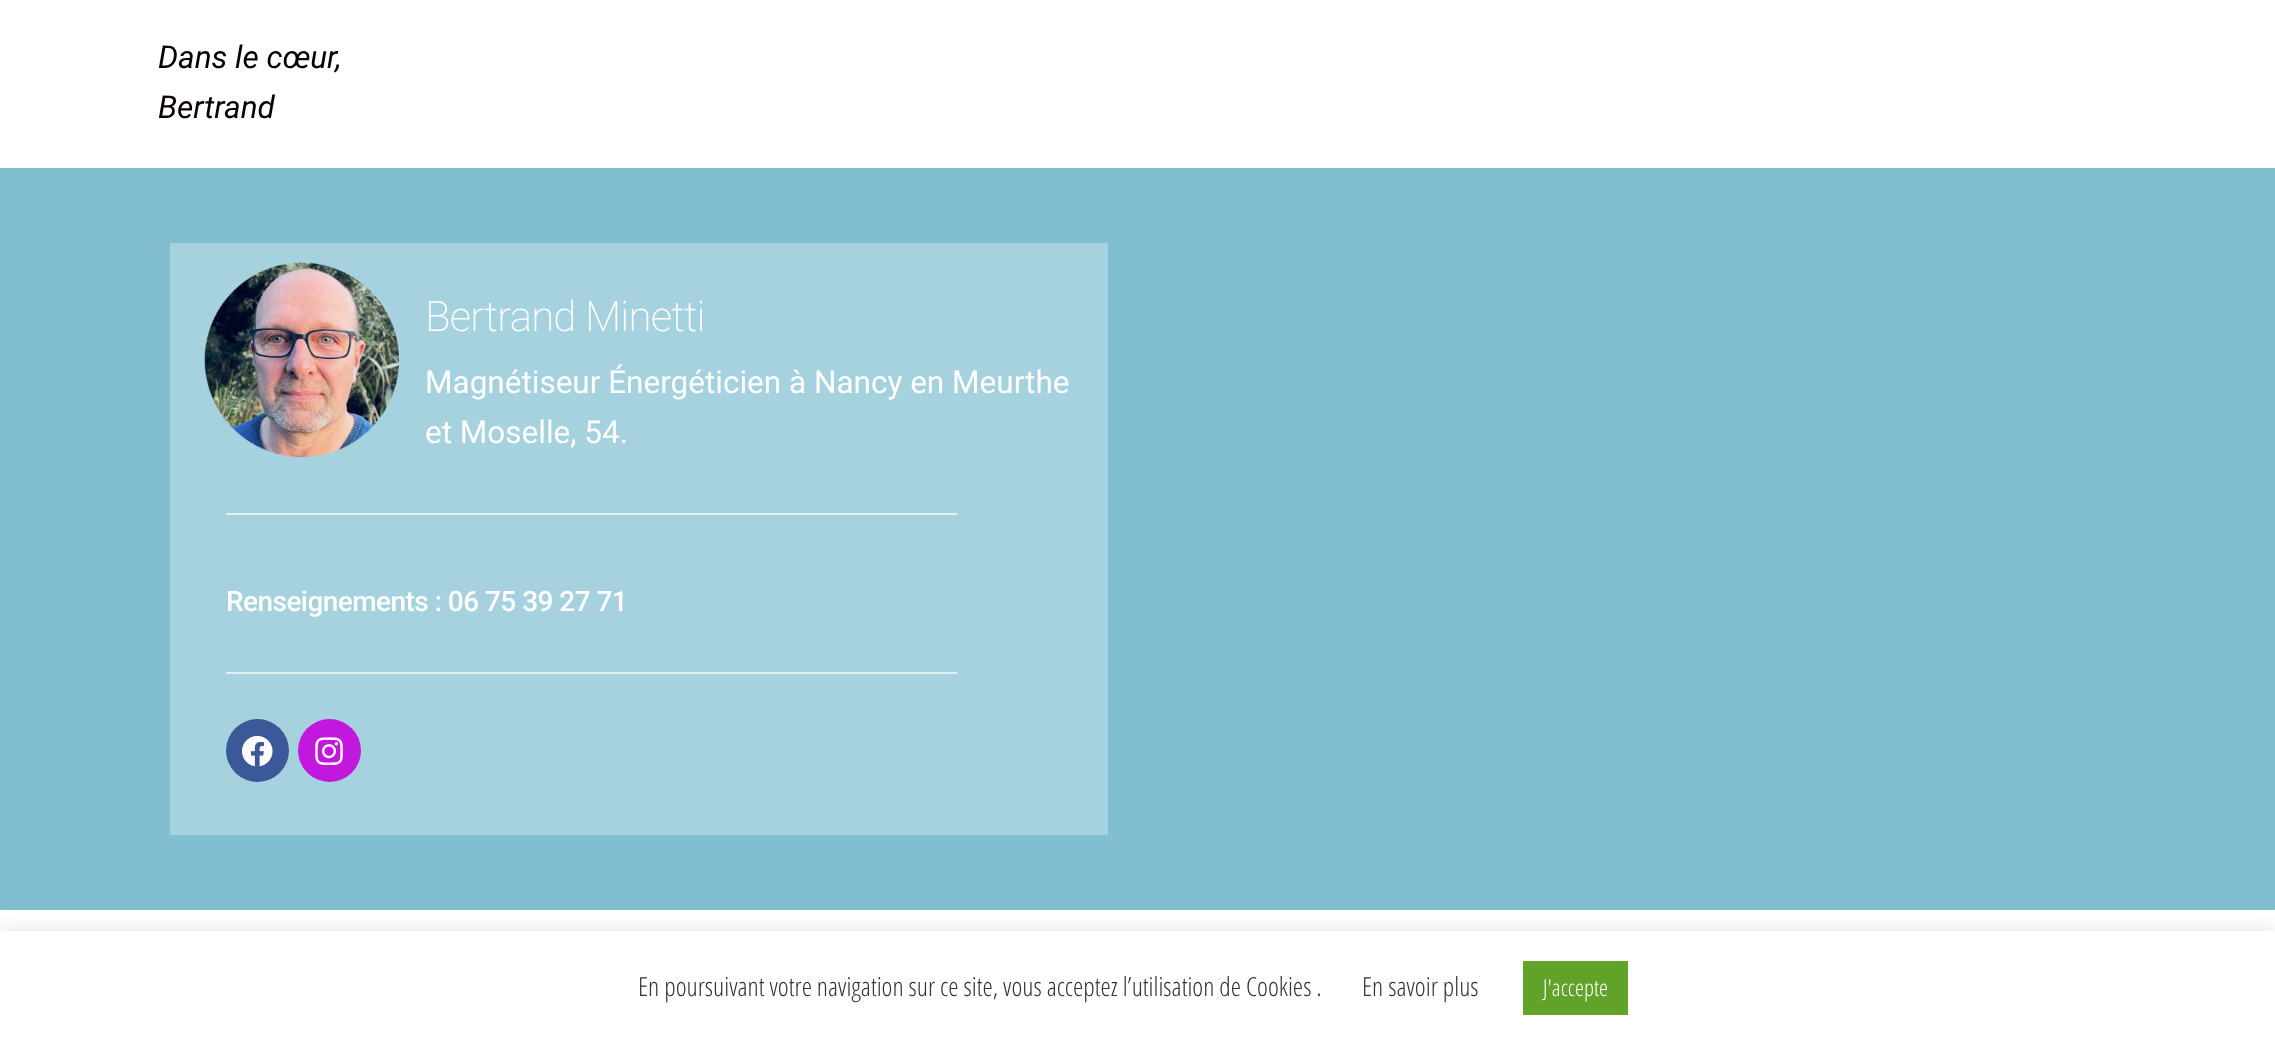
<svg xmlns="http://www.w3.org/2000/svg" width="2275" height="1044">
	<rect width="100%" height="100%" fill="#FFFFFF" />
	<g font-family="Roboto" font-size="31.5" font-style="italic" fill="#090000">
		<text x="158" y="68">Dans le cœur,</text>
		<text x="158" y="118">Bertrand</text>
	</g>
	<rect x="0" y="168" width="2275" height="742" fill="#80BED0" />
	<rect x="170" y="243" width="938" height="592" fill="#A5D2DE" />
	<image x="204" y="262" width="195" height="195" href="assets/img1.png" />
	<text x="425" y="331" font-family="Roboto" font-size="42" font-weight="200" letter-spacing="-0.8" fill="#FFFFFF">Bertrand Minetti</text>
	<g font-family="Roboto" font-size="31.5" fill="#FFFFFF">
		<text x="425" y="393">Magnétiseur Énergéticien à Nancy en Meurthe</text>
		<text x="425" y="443">et Moselle, 54.</text>
	</g>
	<rect x="226" y="513" width="731" height="2" fill="#E0F0F4" />
	<text x="226" y="611" font-family="Roboto" font-size="28" font-weight="500" letter-spacing="-0.55" fill="#FFFFFF">Renseignements : 06 75 39 27 71</text>
	<rect x="226" y="672" width="731" height="2" fill="#E0F0F4" />
	<circle cx="257.5" cy="750.5" r="31.5" fill="#3B5998" />
	<image x="242" y="735" width="31" height="32" href="assets/img2.png" />
	<circle cx="329.5" cy="750.5" r="31.5" fill="#C217DD" />
	<image x="315" y="737" width="28" height="28" href="assets/img3.png" />
	<rect x="0" y="929" width="2275" height="114" fill="#ACABAB" fill-opacity="0.3" filter="blur(9px)" />
	<rect x="0" y="931" width="2275" height="113" fill="#FFFFFF" />
	<g font-family="Open Sans Condensed" font-size="26.25" font-weight="300" fill="#333333">
		<text x="638" y="996">En poursuivant votre navigation sur ce site, vous acceptez l’utilisation de Cookies .</text>
		<text x="1362" y="996">En savoir plus</text>
	</g>
	<rect x="1523" y="961" width="105" height="54" fill="#61A229" />
	<text x="1543" y="996" font-family="Open Sans Condensed" font-size="23" font-weight="300" fill="#FFFFFF">J'accepte</text>
</svg>
